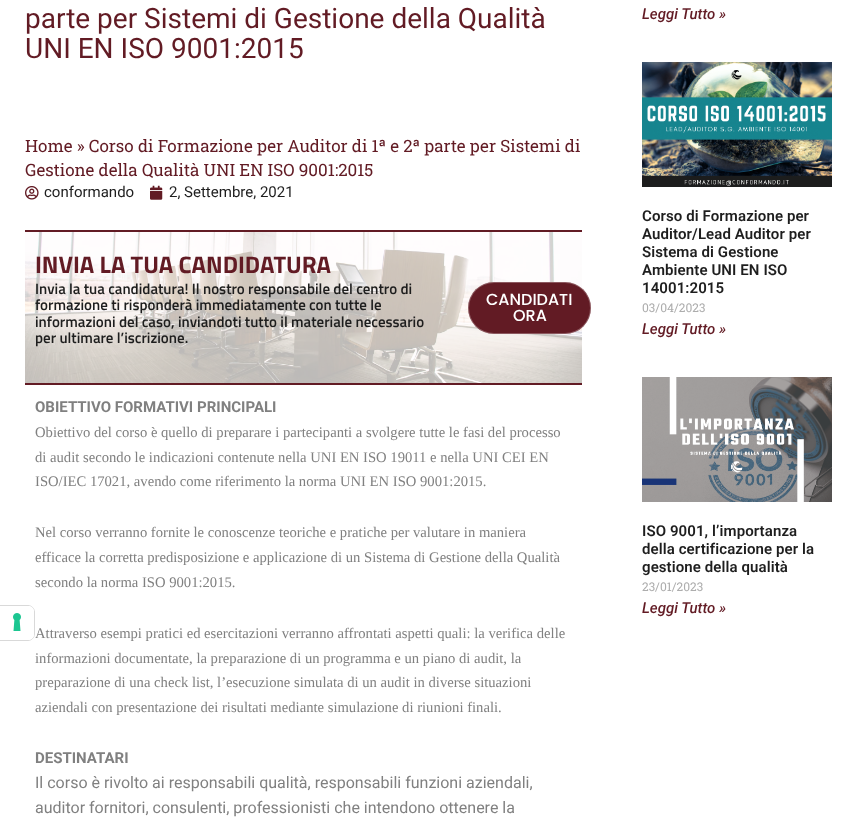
<svg xmlns="http://www.w3.org/2000/svg" width="867" height="830">
	<rect width="100%" height="100%" fill="#FFFFFF" />
	<path d="M-.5 605.5H28C31.5 605.5 34.5 608.5 34.5 612V634C34.5 637.5 31.5 640.5 28 640.5H-.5Z" fill="none" stroke="#D9D9D9" />
	<path d="M0 606H28C31.5 606 34 608.5 34 612V634C34 637.5 31.5 640 28 640H0Z" fill="#FFFFFF" />
	<image x="13" y="613" width="8" height="18" href="assets/img1.png" />
	<g font-family="Roboto" font-size="28" fill="#621B24">
		<text x="25" y="28">parte per Sistemi di Gestione della Qualità</text>
		<text x="25" y="58">UNI EN ISO 9001:2015</text>
	</g>
	<g font-family="Roboto Slab" font-size="17" fill="#621B24">
		<text x="25" y="152">Home » Corso di Formazione per Auditor di 1ª e 2ª parte per Sistemi di</text>
		<text x="25" y="176">Gestione della Qualità UNI EN ISO 9001:2015</text>
	</g>
	<image x="25" y="186" width="14" height="14" href="assets/img2.png" />
	<text x="44" y="197" font-family="Roboto" font-size="15" fill="#1E1E1E">conformando</text>
	<image x="150" y="185" width="13" height="15" href="assets/img3.png" />
	<text x="169" y="197" font-family="Roboto" font-size="15" fill="#1E1E1E">2, Settembre, 2021</text>
	<image x="25" y="232" width="557" height="151" href="assets/img4.png" />
	<rect x="25" y="230" width="557" height="2" fill="#621B24" />
	<rect x="25" y="383" width="557" height="2" fill="#621B24" />
	<text x="35" y="273" font-family="Titillium Web" font-size="24" font-weight="700" fill="#621B24">INVIA LA TUA CANDIDATURA</text>
	<g font-family="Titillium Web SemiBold" font-size="15" font-weight="600" fill="#1E1E1E">
		<text x="35" y="294">Invia la tua candidatura! Il nostro responsabile del centro di</text>
		<text x="35" y="310">formazione ti risponderà immediatamente con tutte le</text>
		<text x="35" y="327">informazioni del caso, inviandoti tutto il materiale necessario</text>
		<text x="35" y="343">per ultimare l’iscrizione.</text>
	</g>
	<rect x="468" y="282" width="123" height="52" rx="26" fill="#621B24" />
	<rect x="468.5" y="282.5" width="122" height="51" rx="25.5" fill="none" stroke="#FFFFFF" stroke-opacity="0.27" />
	<g font-family="Poppins" font-size="16" font-weight="500" fill="#FFFFFF">
		<text x="486" y="305">CANDIDATI</text>
		<text x="513" y="321">ORA</text>
	</g>
	<text x="35" y="412" font-family="Roboto" font-size="15" font-weight="700" fill="#808080">OBIETTIVO FORMATIVI PRINCIPALI</text>
	<g font-family="Liberation Serif" font-size="14.65" fill="#808080">
		<text x="35" y="437">Obiettivo del corso è quello di preparare i partecipanti a svolgere tutte le fasi del processo</text>
		<text x="35" y="462">di audit secondo le indicazioni contenute nella UNI EN ISO 19011 e nella UNI CEI EN</text>
		<text x="35" y="486">ISO/IEC 17021, avendo come riferimento la norma UNI EN ISO 9001:2015.</text>
		<text x="35" y="537">Nel corso verranno fornite le conoscenze teoriche e pratiche per valutare in maniera</text>
		<text x="35" y="562">efficace la corretta predisposizione e applicazione di un Sistema di Gestione della Qualità</text>
		<text x="35" y="587">secondo la norma ISO 9001:2015.</text>
		<text x="35" y="638">Attraverso esempi pratici ed esercitazioni verranno affrontati aspetti quali: la verifica delle</text>
		<text x="35" y="663">informazioni documentate, la preparazione di un programma e un piano di audit, la</text>
		<text x="35" y="687">preparazione di una check list, l’esecuzione simulata di un audit in diverse situazioni</text>
		<text x="35" y="712">aziendali con presentazione dei risultati mediante simulazione di riunioni finali.</text>
	</g>
	<text x="35" y="763" font-family="Roboto" font-size="15" font-weight="700" fill="#808080">DESTINATARI</text>
	<g font-family="Roboto" font-size="16" fill="#808080">
		<text x="35" y="788">Il corso è rivolto ai responsabili qualità, responsabili funzioni aziendali,</text>
		<text x="35" y="813">auditor fornitori, consulenti, professionisti che intendono ottenere la</text>
	</g>
	<text x="642" y="19" font-family="Roboto" font-size="15" font-weight="500" font-style="italic" fill="#621B24">Leggi Tutto »</text>
	<image x="642" y="62" width="190" height="125" href="assets/img5.png" />
	<g font-family="Roboto" font-size="15" font-weight="600" letter-spacing="0.1" fill="#1E1E1E">
		<text x="642" y="221">Corso di Formazione per</text>
		<text x="642" y="239">Auditor/Lead Auditor per</text>
		<text x="642" y="257">Sistema di Gestione</text>
		<text x="642" y="275">Ambiente UNI EN ISO</text>
		<text x="642" y="293">14001:2015</text>
	</g>
	<text x="642" y="312" font-family="Roboto Slab" font-size="12" fill="#ADADAD">03/04/2023</text>
	<text x="642" y="334" font-family="Roboto" font-size="15" font-weight="500" font-style="italic" fill="#621B24">Leggi Tutto »</text>
	<image x="642" y="377" width="190" height="125" href="assets/img6.png" />
	<g font-family="Roboto" font-size="15" font-weight="600" letter-spacing="0.1" fill="#1E1E1E">
		<text x="642" y="536">ISO 9001, l’importanza</text>
		<text x="642" y="554">della certificazione per la</text>
		<text x="642" y="572">gestione della qualità</text>
	</g>
	<text x="642" y="591" font-family="Roboto Slab" font-size="12" fill="#ADADAD">23/01/2023</text>
	<text x="642" y="613" font-family="Roboto" font-size="15" font-weight="500" font-style="italic" fill="#621B24">Leggi Tutto »</text>
</svg>
